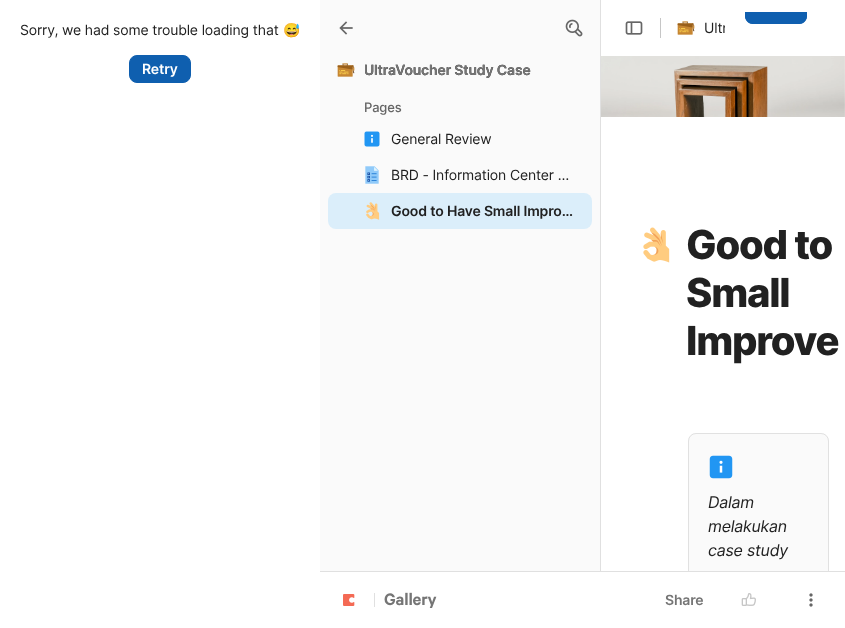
<svg xmlns="http://www.w3.org/2000/svg" width="845" height="628">
	<defs>
		<clipPath id="clip1"><rect x="725" y="12" width="102" height="32" /></clipPath>
		<clipPath id="clip2"><rect x="704" y="18" width="21" height="20" /></clipPath>
		<clipPath id="clip3"><rect x="320" y="56" width="525" height="515" /></clipPath>
	</defs>
	<rect width="100%" height="100%" fill="#FFFFFF" />
	<text x="20" y="35" font-family="Inter" font-size="14" letter-spacing="-0.15" fill="#212121">Sorry, we had some trouble loading that</text>
	<text x="283" y="35" font-family="Noto Color Emoji" font-size="14" letter-spacing="-0.15" fill="#212121">😅</text>
	<rect x="129.5" y="55.5" width="61" height="27" rx="7.5" fill="#0F5FAF" stroke="#0F5FAF" />
	<text x="142" y="74" font-family="Inter" font-size="14" font-weight="600" letter-spacing="-0.15" fill="#FFFFFF">Retry</text>
	<rect x="320" y="0" width="280" height="571" fill="#FAFAFA" />
	<rect x="600" y="0" width="1" height="572" fill="#E0E0E0" />
	<rect x="320" y="571" width="281" height="1" fill="#E0E0E0" />
	<image x="339" y="21" width="14" height="14" href="assets/img1.png" />
	<image x="565" y="19" width="18" height="18" href="assets/img2.png" />
	<image x="337" y="63" width="18" height="14" href="assets/img3.png" />
	<text x="364" y="75" font-family="Inter" font-size="14" font-weight="600" letter-spacing="-0.15" fill="#212121">UltraVoucher Study Case</text>
	<text x="364" y="75" font-family="Inter" font-size="14" font-weight="600" letter-spacing="-0.15" fill="#757575">UltraVoucher Study Case</text>
	<text x="364" y="112" font-family="Inter" font-size="13" font-weight="500" letter-spacing="-0.15" fill="#666666">Pages</text>
	<image x="364" y="131" width="16" height="16" href="assets/img4.png" />
	<text x="391" y="144" font-family="Inter" font-size="14" letter-spacing="-0.15" fill="#212121">General Review</text>
	<image x="365" y="166" width="14" height="18" href="assets/img5.png" />
	<text x="391" y="180" font-family="Inter" font-size="14" letter-spacing="-0.15" fill="#212121">BRD - Information Center …</text>
	<rect x="328" y="193" width="264" height="36" rx="8" fill="#DBEEFA" />
	<image x="366" y="202" width="14" height="18" href="assets/img6.png" />
	<text x="391" y="216" font-family="Inter" font-size="14" font-weight="600" letter-spacing="-0.15" fill="#212121">Good to Have Small Impro…</text>
	<path d="M745 12H807V16C807 20.5 803.5 24 799 24H753C748.5 24 745 20.5 745 16Z" fill="#0F5FAF" />
	<g clip-path="url(#clip1)">
		<rect x="745.5" y="-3.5" width="61" height="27" rx="7.5" fill="none" stroke="#0F5FAF" />
	</g>
	<image x="625" y="21" width="18" height="14" href="assets/img7.png" />
	<rect x="660" y="18" width="1" height="20" fill="#C6C6C6" />
	<image x="677" y="21" width="18" height="14" href="assets/img8.png" />
	<g clip-path="url(#clip2)">
		<text x="704" y="33" font-family="Inter" font-size="14" letter-spacing="-0.15" fill="#212121">Ultr</text>
	</g>
	<image x="601" y="56" width="244" height="61" href="assets/img9.png" />
	<image x="643" y="227" width="27" height="36" href="assets/img10.png" />
	<g font-family="Inter" font-size="40" font-weight="800" letter-spacing="-1.25" fill="#212121">
		<text x="686" y="259">Good to</text>
		<text x="686" y="307">Small</text>
		<text x="686" y="355">Improve</text>
	</g>
	<path d="M696 433H821C825.5 433 829 436.5 829 441V571H688V441C688 436.5 691.5 433 696 433Z" fill="#FAFAFA" />
	<rect x="601" y="571" width="244" height="1" fill="#E0E0E0" />
	<image x="809" y="593" width="4" height="14" href="assets/img14.png" />
	<g clip-path="url(#clip3)">
		<rect x="688.5" y="433.5" width="140" height="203" rx="7.5" fill="none" stroke="#E1E1E1" />
	</g>
	<image x="709" y="455" width="24" height="24" href="assets/img11.png" />
	<g font-family="Inter" font-size="16" font-style="italic" letter-spacing="-0.25" fill="#212121">
		<text x="708" y="508">Dalam</text>
		<text x="708" y="532">melakukan</text>
		<text x="708" y="556">case study</text>
	</g>
	<image x="343" y="594" width="12" height="12" href="assets/img12.png" />
	<rect x="374" y="593" width="1" height="14" fill="#E0E0E0" />
	<text x="384" y="605" font-family="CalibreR" font-size="16" font-weight="600" letter-spacing="-0.15" fill="#757575">Gallery</text>
	<text x="665" y="605" font-family="Inter" font-size="14" font-weight="600" letter-spacing="-0.15" fill="#757575">Share</text>
	<image x="741" y="593" width="15" height="13" href="assets/img13.png" />
</svg>
